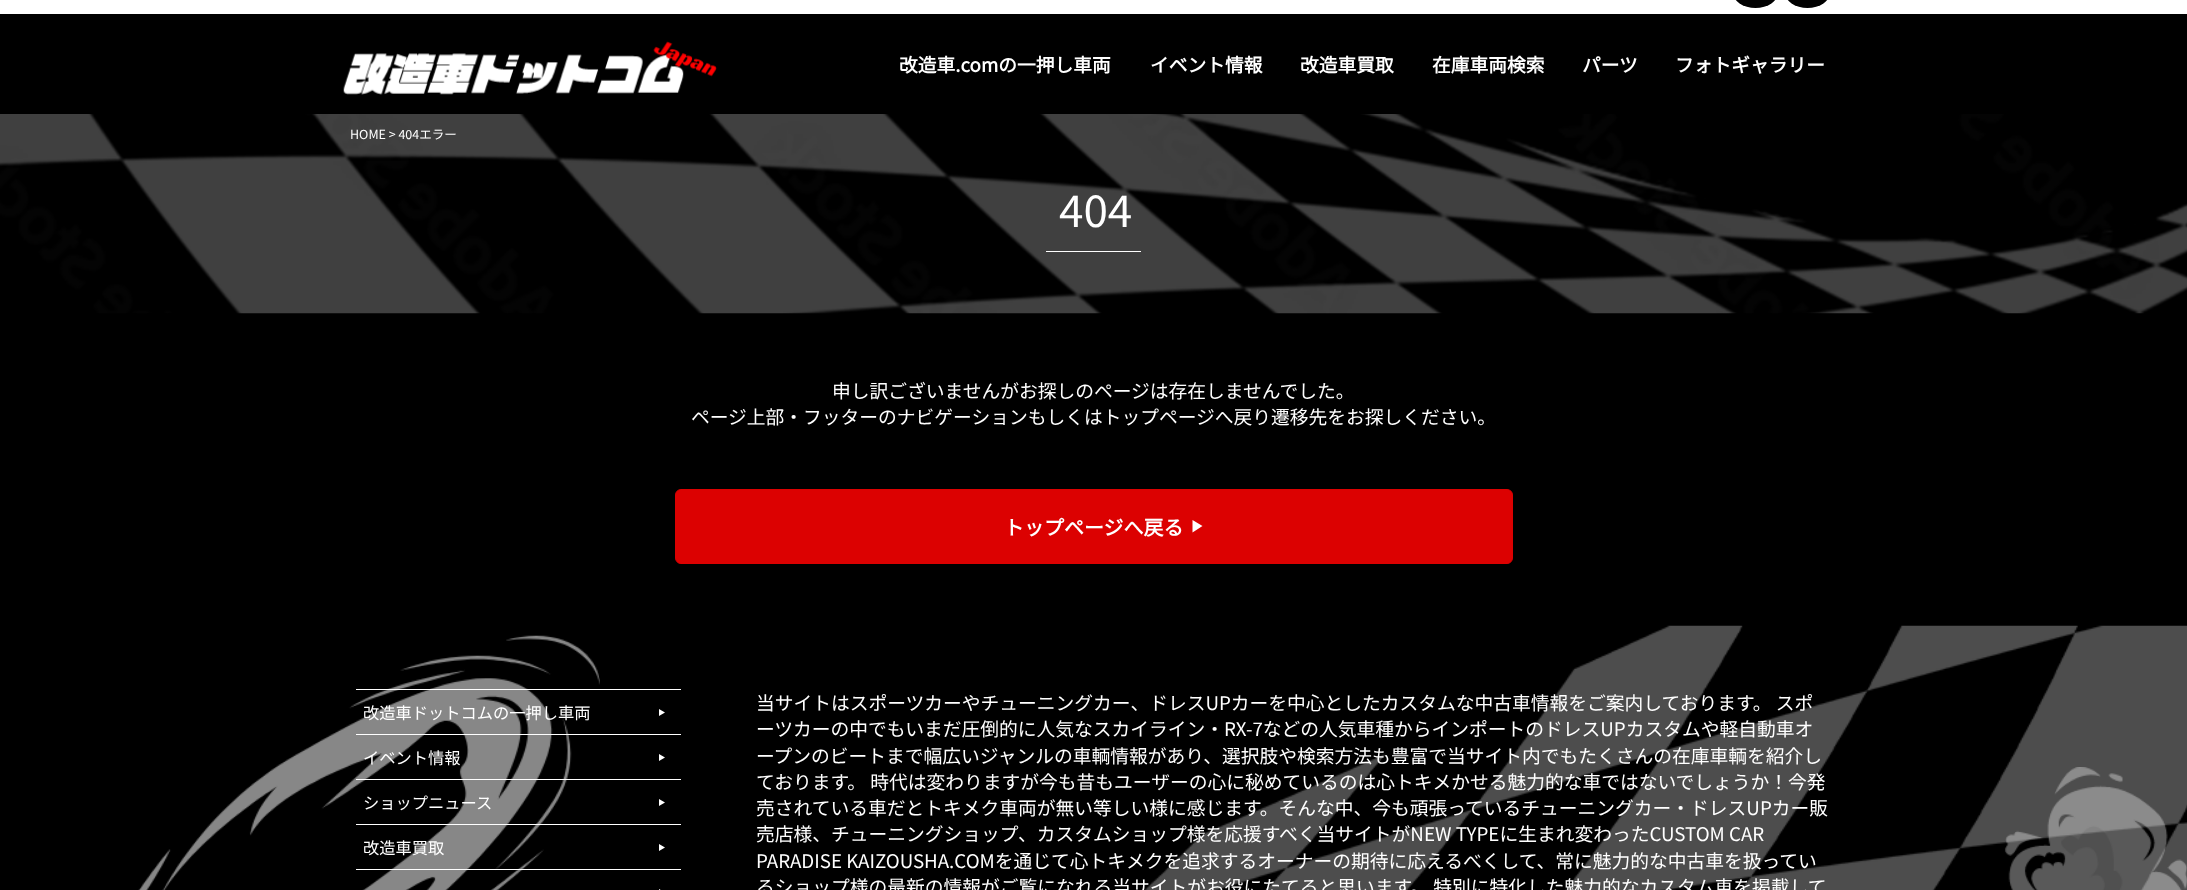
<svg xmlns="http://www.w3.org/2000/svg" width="2187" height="890">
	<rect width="100%" height="100%" fill="#000000" />
	<rect x="0" y="0" width="2187" height="14" fill="#FFFFFF" />
	<rect x="1733" y="-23" width="45" height="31" rx="22.5" fill="#000000" />
	<rect x="1785" y="-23" width="45" height="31" rx="22.5" fill="#000000" />
	<image x="343" y="41" width="374" height="54" href="assets/img1.png" />
	<g font-family="Noto Sans JP" font-size="18.75" font-weight="700" fill="#FFFFFF">
		<text x="899" y="72">改造車.comの一押し車両</text>
		<text x="1150" y="72">イベント情報</text>
		<text x="1300" y="72">改造車買取</text>
		<text x="1432" y="72">在庫車両検索</text>
		<text x="1582" y="72">パーツ</text>
		<text x="1675" y="72">フォトギャラリー</text>
	</g>
	<image x="0" y="114" width="2187" height="200" href="assets/img2.png" />
	<text x="350" y="139" font-family="Noto Sans JP" font-size="12.5" fill="#FFFFFF">HOME &gt; 404エラー</text>
	<text x="1059" y="227" font-family="Noto Sans JP" font-size="44" fill="#FFFFFF">404</text>
	<rect x="1046" y="251" width="95" height="1" fill="#FFFFFF" />
	<g font-family="Noto Sans JP" font-size="18.75" fill="#FFFFFF">
		<text x="832" y="398">申し訳ございませんがお探しのページは存在しませんでした。</text>
		<text x="691" y="424">ページ上部・フッターのナビゲーションもしくはトップページへ戻り遷移先をお探しください。</text>
	</g>
	<rect x="675.5" y="489.5" width="837" height="74" rx="5.5" fill="#DC0101" stroke="#DC0101" />
	<text x="1004" y="535" font-family="Noto Sans JP" font-size="20" font-weight="700" fill="#FFFFFF">トップページへ戻る</text>
	<path d="M1192.5 532.5V520L1202.5 526Z" fill="#FFFFFF" />
	<image x="138" y="625" width="2049" height="265" href="assets/img3.png" />
	<rect x="356" y="689" width="325" height="1" fill="#FFFFFF" />
	<rect x="356" y="734" width="325" height="1" fill="#FFFFFF" />
	<text x="363" y="719" font-family="Noto Sans JP" font-size="16.25" fill="#FFFFFF">改造車ドットコムの一押し車両</text>
	<path d="M659 716V709L665 712.5Z" fill="#FFFFFF" />
	<rect x="356" y="779" width="325" height="1" fill="#FFFFFF" />
	<text x="363" y="764" font-family="Noto Sans JP" font-size="16.25" fill="#FFFFFF">イベント情報</text>
	<path d="M659 761V754L665 757.5Z" fill="#FFFFFF" />
	<rect x="356" y="824" width="325" height="1" fill="#FFFFFF" />
	<text x="363" y="809" font-family="Noto Sans JP" font-size="16.25" fill="#FFFFFF">ショップニュース</text>
	<path d="M659 806V799L665 802.5Z" fill="#FFFFFF" />
	<rect x="356" y="869" width="325" height="1" fill="#FFFFFF" />
	<text x="363" y="854" font-family="Noto Sans JP" font-size="16.25" fill="#FFFFFF">改造車買取</text>
	<path d="M659 851V844L665 847.5ZM659 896V889L665 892.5Z" fill="#FFFFFF" />
	<g font-family="Noto Sans JP" font-size="18.75" fill="#FFFFFF">
		<text x="756" y="710">当サイトはスポーツカーやチューニングカー、ドレスUPカーを中心としたカスタムな中古車情報をご案内しております。 スポ</text>
		<text x="756" y="736">ーツカーの中でもいまだ圧倒的に人気なスカイライン・RX-7などの人気車種からインポートのドレスUPカスタムや軽自動車オ</text>
		<text x="756" y="763">ープンのビートまで幅広いジャンルの車輌情報があり、選択肢や検索方法も豊富で当サイト内でもたくさんの在庫車輌を紹介し</text>
		<text x="756" y="789">ております。 時代は変わりますが今も昔もユーザーの心に秘めているのは心トキメかせる魅力的な車ではないでしょうか！今発</text>
		<text x="756" y="815">売されている車だとトキメク車両が無い等しい様に感じます。そんな中、今も頑張っているチューニングカー・ドレスUPカー販</text>
		<text x="756" y="841">売店様、チューニングショップ、カスタムショップ様を応援すべく当サイトがNEW TYPEに生まれ変わったCUSTOM CAR</text>
		<text x="756" y="868">PARADISE KAIZOUSHA.COMを通じて心トキメクを追求するオーナーの期待に応えるべくして、常に魅力的な中古車を扱ってい</text>
		<text x="756" y="894">るショップ様の最新の情報がご覧になれる当サイトがお役にたてると思います。 特別に特化した魅力的なカスタム車を掲載して</text>
	</g>
</svg>
